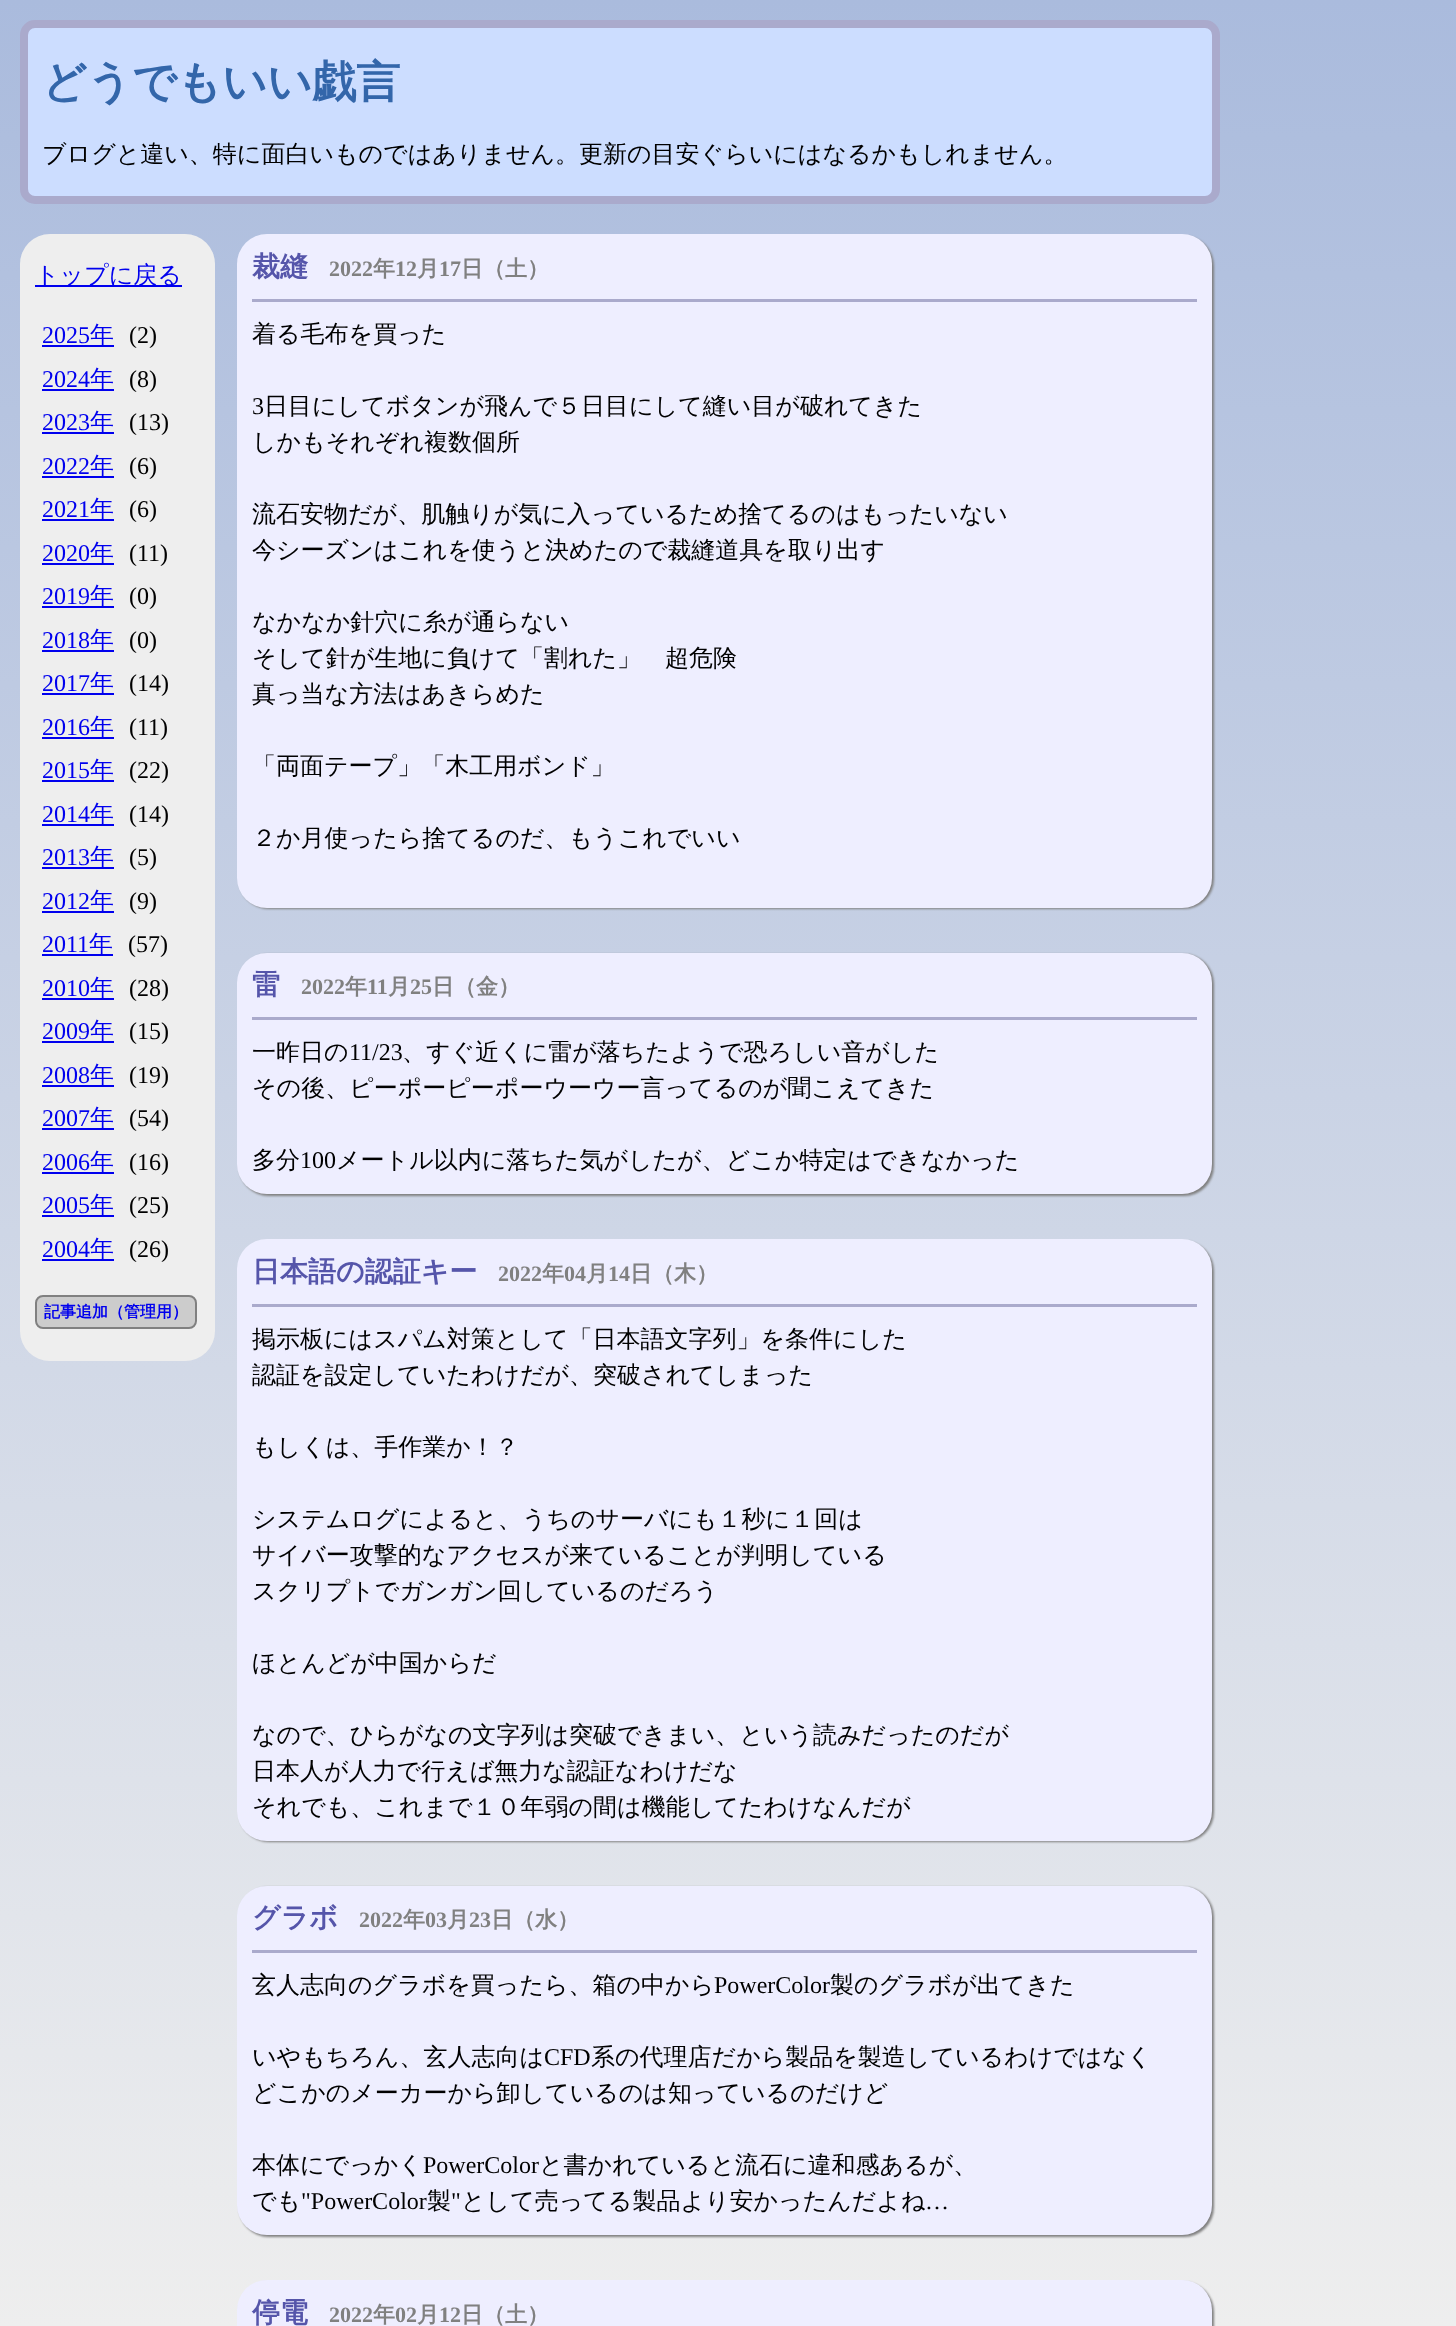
<svg xmlns="http://www.w3.org/2000/svg" width="1456" height="2326">
	<defs>
		<linearGradient id="g1" gradientUnits="userSpaceOnUse" x1="728" y1="0" x2="728" y2="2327"><stop offset="0" stop-color="#AABBDD" /><stop offset="1" stop-color="#EEEEEE" /></linearGradient>
	</defs>
	<rect width="100%" height="100%" fill="#FFFFFF" />
	<rect x="0" y="0" width="1456" height="2326" fill="url(#g1)" />
	<rect x="24" y="24" width="1192" height="176" rx="11" fill="#CCDDFF" stroke="#AAAACC" stroke-width="8" />
	<text x="42" y="97" font-family="WenQuanYi Zen Hei" font-size="44" font-weight="700" fill="#3366AA">どうでもいい戯言</text>
	<text x="42" y="162" font-family="WenQuanYi Zen Hei" font-size="24" font-weight="500" fill="#000000">ブログと違い、特に面白いものではありません。更新の目安ぐらいにはなるかもしれません。</text>
	<rect x="20" y="234" width="195" height="1127" rx="30" fill="#EEEEEE" />
	<rect x="35" y="285" width="147" height="2" fill="#0000EE" />
	<text x="35" y="283" font-family="WenQuanYi Zen Hei" font-size="24" font-weight="500" fill="#0000EE">トップに戻る</text>
	<text x="42" y="343" font-family="Liberation Serif" font-size="24" fill="#0000EE">2025</text>
	<rect x="42" y="345" width="72" height="2" fill="#0000EE" />
	<text x="90" y="343" font-family="WenQuanYi Zen Hei" font-size="24" font-weight="500" fill="#0000EE">年</text>
	<text x="129" y="343" font-family="Liberation Serif" font-size="24" fill="#000000">(2)</text>
	<text x="42" y="387" font-family="Liberation Serif" font-size="24" fill="#0000EE">2024</text>
	<rect x="42" y="389" width="72" height="2" fill="#0000EE" />
	<text x="90" y="387" font-family="WenQuanYi Zen Hei" font-size="24" font-weight="500" fill="#0000EE">年</text>
	<text x="129" y="387" font-family="Liberation Serif" font-size="24" fill="#000000">(8)</text>
	<text x="42" y="430" font-family="Liberation Serif" font-size="24" fill="#0000EE">2023</text>
	<rect x="42" y="432" width="72" height="2" fill="#0000EE" />
	<text x="90" y="430" font-family="WenQuanYi Zen Hei" font-size="24" font-weight="500" fill="#0000EE">年</text>
	<text x="129" y="430" font-family="Liberation Serif" font-size="24" fill="#000000">(13)</text>
	<text x="42" y="474" font-family="Liberation Serif" font-size="24" fill="#0000EE">2022</text>
	<rect x="42" y="476" width="72" height="2" fill="#0000EE" />
	<text x="90" y="474" font-family="WenQuanYi Zen Hei" font-size="24" font-weight="500" fill="#0000EE">年</text>
	<text x="129" y="474" font-family="Liberation Serif" font-size="24" fill="#000000">(6)</text>
	<text x="42" y="517" font-family="Liberation Serif" font-size="24" fill="#0000EE">2021</text>
	<rect x="42" y="519" width="72" height="2" fill="#0000EE" />
	<text x="90" y="517" font-family="WenQuanYi Zen Hei" font-size="24" font-weight="500" fill="#0000EE">年</text>
	<text x="129" y="517" font-family="Liberation Serif" font-size="24" fill="#000000">(6)</text>
	<text x="42" y="561" font-family="Liberation Serif" font-size="24" fill="#0000EE">2020</text>
	<rect x="42" y="563" width="72" height="2" fill="#0000EE" />
	<text x="90" y="561" font-family="WenQuanYi Zen Hei" font-size="24" font-weight="500" fill="#0000EE">年</text>
	<text x="129" y="561" font-family="Liberation Serif" font-size="24" fill="#000000">(11)</text>
	<text x="42" y="604" font-family="Liberation Serif" font-size="24" fill="#0000EE">2019</text>
	<rect x="42" y="606" width="72" height="2" fill="#0000EE" />
	<text x="90" y="604" font-family="WenQuanYi Zen Hei" font-size="24" font-weight="500" fill="#0000EE">年</text>
	<text x="129" y="604" font-family="Liberation Serif" font-size="24" fill="#000000">(0)</text>
	<text x="42" y="648" font-family="Liberation Serif" font-size="24" fill="#0000EE">2018</text>
	<rect x="42" y="650" width="72" height="2" fill="#0000EE" />
	<text x="90" y="648" font-family="WenQuanYi Zen Hei" font-size="24" font-weight="500" fill="#0000EE">年</text>
	<text x="129" y="648" font-family="Liberation Serif" font-size="24" fill="#000000">(0)</text>
	<text x="42" y="691" font-family="Liberation Serif" font-size="24" fill="#0000EE">2017</text>
	<rect x="42" y="693" width="72" height="2" fill="#0000EE" />
	<text x="90" y="691" font-family="WenQuanYi Zen Hei" font-size="24" font-weight="500" fill="#0000EE">年</text>
	<text x="129" y="691" font-family="Liberation Serif" font-size="24" fill="#000000">(14)</text>
	<text x="42" y="735" font-family="Liberation Serif" font-size="24" fill="#0000EE">2016</text>
	<rect x="42" y="737" width="72" height="2" fill="#0000EE" />
	<text x="90" y="735" font-family="WenQuanYi Zen Hei" font-size="24" font-weight="500" fill="#0000EE">年</text>
	<text x="129" y="735" font-family="Liberation Serif" font-size="24" fill="#000000">(11)</text>
	<text x="42" y="778" font-family="Liberation Serif" font-size="24" fill="#0000EE">2015</text>
	<rect x="42" y="780" width="72" height="2" fill="#0000EE" />
	<text x="90" y="778" font-family="WenQuanYi Zen Hei" font-size="24" font-weight="500" fill="#0000EE">年</text>
	<text x="129" y="778" font-family="Liberation Serif" font-size="24" fill="#000000">(22)</text>
	<text x="42" y="822" font-family="Liberation Serif" font-size="24" fill="#0000EE">2014</text>
	<rect x="42" y="824" width="72" height="2" fill="#0000EE" />
	<text x="90" y="822" font-family="WenQuanYi Zen Hei" font-size="24" font-weight="500" fill="#0000EE">年</text>
	<text x="129" y="822" font-family="Liberation Serif" font-size="24" fill="#000000">(14)</text>
	<text x="42" y="865" font-family="Liberation Serif" font-size="24" fill="#0000EE">2013</text>
	<rect x="42" y="867" width="72" height="2" fill="#0000EE" />
	<text x="90" y="865" font-family="WenQuanYi Zen Hei" font-size="24" font-weight="500" fill="#0000EE">年</text>
	<text x="129" y="865" font-family="Liberation Serif" font-size="24" fill="#000000">(5)</text>
	<text x="42" y="909" font-family="Liberation Serif" font-size="24" fill="#0000EE">2012</text>
	<rect x="42" y="911" width="72" height="2" fill="#0000EE" />
	<text x="90" y="909" font-family="WenQuanYi Zen Hei" font-size="24" font-weight="500" fill="#0000EE">年</text>
	<text x="129" y="909" font-family="Liberation Serif" font-size="24" fill="#000000">(9)</text>
	<text x="42" y="952" font-family="Liberation Serif" font-size="24" fill="#0000EE">2011</text>
	<rect x="42" y="954" width="71" height="2" fill="#0000EE" />
	<text x="89" y="952" font-family="WenQuanYi Zen Hei" font-size="24" font-weight="500" fill="#0000EE">年</text>
	<text x="128" y="952" font-family="Liberation Serif" font-size="24" fill="#000000">(57)</text>
	<text x="42" y="996" font-family="Liberation Serif" font-size="24" fill="#0000EE">2010</text>
	<rect x="42" y="998" width="72" height="2" fill="#0000EE" />
	<text x="90" y="996" font-family="WenQuanYi Zen Hei" font-size="24" font-weight="500" fill="#0000EE">年</text>
	<text x="129" y="996" font-family="Liberation Serif" font-size="24" fill="#000000">(28)</text>
	<text x="42" y="1039" font-family="Liberation Serif" font-size="24" fill="#0000EE">2009</text>
	<rect x="42" y="1041" width="72" height="2" fill="#0000EE" />
	<text x="90" y="1039" font-family="WenQuanYi Zen Hei" font-size="24" font-weight="500" fill="#0000EE">年</text>
	<text x="129" y="1039" font-family="Liberation Serif" font-size="24" fill="#000000">(15)</text>
	<text x="42" y="1083" font-family="Liberation Serif" font-size="24" fill="#0000EE">2008</text>
	<rect x="42" y="1085" width="72" height="2" fill="#0000EE" />
	<text x="90" y="1083" font-family="WenQuanYi Zen Hei" font-size="24" font-weight="500" fill="#0000EE">年</text>
	<text x="129" y="1083" font-family="Liberation Serif" font-size="24" fill="#000000">(19)</text>
	<text x="42" y="1126" font-family="Liberation Serif" font-size="24" fill="#0000EE">2007</text>
	<rect x="42" y="1128" width="72" height="2" fill="#0000EE" />
	<text x="90" y="1126" font-family="WenQuanYi Zen Hei" font-size="24" font-weight="500" fill="#0000EE">年</text>
	<text x="129" y="1126" font-family="Liberation Serif" font-size="24" fill="#000000">(54)</text>
	<text x="42" y="1170" font-family="Liberation Serif" font-size="24" fill="#0000EE">2006</text>
	<rect x="42" y="1172" width="72" height="2" fill="#0000EE" />
	<text x="90" y="1170" font-family="WenQuanYi Zen Hei" font-size="24" font-weight="500" fill="#0000EE">年</text>
	<text x="129" y="1170" font-family="Liberation Serif" font-size="24" fill="#000000">(16)</text>
	<text x="42" y="1213" font-family="Liberation Serif" font-size="24" fill="#0000EE">2005</text>
	<rect x="42" y="1215" width="72" height="2" fill="#0000EE" />
	<text x="90" y="1213" font-family="WenQuanYi Zen Hei" font-size="24" font-weight="500" fill="#0000EE">年</text>
	<text x="129" y="1213" font-family="Liberation Serif" font-size="24" fill="#000000">(25)</text>
	<text x="42" y="1257" font-family="Liberation Serif" font-size="24" fill="#0000EE">2004</text>
	<rect x="42" y="1259" width="72" height="2" fill="#0000EE" />
	<text x="90" y="1257" font-family="WenQuanYi Zen Hei" font-size="24" font-weight="500" fill="#0000EE">年</text>
	<text x="129" y="1257" font-family="Liberation Serif" font-size="24" fill="#000000">(26)</text>
	<rect x="36" y="1296" width="160" height="32" rx="7" fill="#CCCCCC" stroke="#808080" stroke-width="2" />
	<text x="44" y="1317" font-family="WenQuanYi Zen Hei" font-size="16" font-weight="700" fill="#0000EE">記事追加（管理用）</text>
	<rect x="239" y="236" width="975" height="673" rx="30" fill="#808080" filter="blur(1px)" />
	<rect x="237" y="234" width="975" height="674" rx="30" fill="#EEEEFF" />
	<text x="252" y="276" font-family="WenQuanYi Zen Hei" font-size="28" font-weight="700" fill="#5555AA">裁縫</text>
	<text x="329" y="276" font-family="Liberation Serif" font-size="22" font-weight="700" fill="#808080">2022</text>
	<text x="373" y="276" font-family="WenQuanYi Zen Hei" font-size="22" font-weight="700" fill="#808080">年</text>
	<text x="395" y="276" font-family="Liberation Serif" font-size="22" font-weight="700" fill="#808080">12</text>
	<text x="417" y="276" font-family="WenQuanYi Zen Hei" font-size="22" font-weight="700" fill="#808080">月</text>
	<text x="439" y="276" font-family="Liberation Serif" font-size="22" font-weight="700" fill="#808080">17</text>
	<text x="461" y="276" font-family="WenQuanYi Zen Hei" font-size="22" font-weight="700" fill="#808080">日（土）</text>
	<rect x="252" y="299" width="945" height="3" fill="#AAAACC" />
	<text x="252" y="342" font-family="WenQuanYi Zen Hei" font-size="24" font-weight="500" fill="#000000">着る毛布を買った</text>
	<text x="252" y="414" font-family="Liberation Serif" font-size="24" fill="#000000">3</text>
	<g font-family="WenQuanYi Zen Hei" font-size="24" font-weight="500" fill="#000000">
		<text x="264" y="414">日目にしてボタンが飛んで５日目にして縫い目が破れてきた</text>
		<text x="252" y="450">しかもそれぞれ複数個所</text>
		<text x="252" y="522">流石安物だが、肌触りが気に入っているため捨てるのはもったいない</text>
		<text x="252" y="558">今シーズンはこれを使うと決めたので裁縫道具を取り出す</text>
		<text x="252" y="630">なかなか針穴に糸が通らない</text>
		<text x="252" y="666">そして針が生地に負けて「割れた」　超危険</text>
		<text x="252" y="702">真っ当な方法はあきらめた</text>
		<text x="252" y="774">「両面テープ」「木工用ボンド」</text>
		<text x="252" y="846">２か月使ったら捨てるのだ、もうこれでいい</text>
	</g>
	<rect x="239" y="954" width="975" height="242" rx="30" fill="#808080" filter="blur(1px)" />
	<rect x="237" y="953" width="975" height="241" rx="30" fill="#EEEEFF" />
	<text x="252" y="994" font-family="WenQuanYi Zen Hei" font-size="28" font-weight="700" fill="#5555AA">雷</text>
	<text x="301" y="994" font-family="Liberation Serif" font-size="22" font-weight="700" fill="#808080">2022</text>
	<text x="345" y="994" font-family="WenQuanYi Zen Hei" font-size="22" font-weight="700" fill="#808080">年</text>
	<text x="367" y="994" font-family="Liberation Serif" font-size="22" font-weight="700" fill="#808080">11</text>
	<text x="388" y="994" font-family="WenQuanYi Zen Hei" font-size="22" font-weight="700" fill="#808080">月</text>
	<text x="410" y="994" font-family="Liberation Serif" font-size="22" font-weight="700" fill="#808080">25</text>
	<text x="432" y="994" font-family="WenQuanYi Zen Hei" font-size="22" font-weight="700" fill="#808080">日（金）</text>
	<rect x="252" y="1017" width="945" height="3" fill="#AAAACC" />
	<text x="252" y="1060" font-family="WenQuanYi Zen Hei" font-size="24" font-weight="500" fill="#000000">一昨日の</text>
	<text x="349" y="1060" font-family="Liberation Serif" font-size="24" fill="#000000">11/23</text>
	<g font-family="WenQuanYi Zen Hei" font-size="24" font-weight="500" fill="#000000">
		<text x="402" y="1060">、すぐ近くに雷が落ちたようで恐ろしい音がした</text>
		<text x="252" y="1096">その後、ピーポーピーポーウーウー言ってるのが聞こえてきた</text>
		<text x="252" y="1168">多分</text>
	</g>
	<text x="300" y="1168" font-family="Liberation Serif" font-size="24" fill="#000000">100</text>
	<text x="336" y="1168" font-family="WenQuanYi Zen Hei" font-size="24" font-weight="500" fill="#000000">メートル以内に落ちた気がしたが、どこか特定はできなかった</text>
	<rect x="239" y="1241" width="975" height="601" rx="30" fill="#808080" filter="blur(1px)" />
	<rect x="237" y="1239" width="975" height="602" rx="30" fill="#EEEEFF" />
	<text x="252" y="1281" font-family="WenQuanYi Zen Hei" font-size="28" font-weight="700" fill="#5555AA">日本語の認証キー</text>
	<text x="498" y="1281" font-family="Liberation Serif" font-size="22" font-weight="700" fill="#808080">2022</text>
	<text x="542" y="1281" font-family="WenQuanYi Zen Hei" font-size="22" font-weight="700" fill="#808080">年</text>
	<text x="564" y="1281" font-family="Liberation Serif" font-size="22" font-weight="700" fill="#808080">04</text>
	<text x="586" y="1281" font-family="WenQuanYi Zen Hei" font-size="22" font-weight="700" fill="#808080">月</text>
	<text x="608" y="1281" font-family="Liberation Serif" font-size="22" font-weight="700" fill="#808080">14</text>
	<text x="630" y="1281" font-family="WenQuanYi Zen Hei" font-size="22" font-weight="700" fill="#808080">日（木）</text>
	<rect x="252" y="1304" width="945" height="3" fill="#AAAACC" />
	<g font-family="WenQuanYi Zen Hei" font-size="24" font-weight="500" fill="#000000">
		<text x="252" y="1347">掲示板にはスパム対策として「日本語文字列」を条件にした</text>
		<text x="252" y="1383">認証を設定していたわけだが、突破されてしまった</text>
		<text x="252" y="1455">もしくは、手作業か！？</text>
		<text x="252" y="1527">システムログによると、うちのサーバにも１秒に１回は</text>
		<text x="252" y="1563">サイバー攻撃的なアクセスが来ていることが判明している</text>
		<text x="252" y="1599">スクリプトでガンガン回しているのだろう</text>
		<text x="252" y="1671">ほとんどが中国からだ</text>
		<text x="252" y="1743">なので、ひらがなの文字列は突破できまい、という読みだったのだが</text>
		<text x="252" y="1779">日本人が人力で行えば無力な認証なわけだな</text>
		<text x="252" y="1815">それでも、これまで１０年弱の間は機能してたわけなんだが</text>
	</g>
	<rect x="239" y="1887" width="975" height="350" rx="30" fill="#808080" filter="blur(1px)" />
	<rect x="237" y="1886" width="975" height="349" rx="30" fill="#EEEEFF" />
	<text x="252" y="1927" font-family="WenQuanYi Zen Hei" font-size="28" font-weight="700" fill="#5555AA">グラボ</text>
	<text x="359" y="1927" font-family="Liberation Serif" font-size="22" font-weight="700" fill="#808080">2022</text>
	<text x="403" y="1927" font-family="WenQuanYi Zen Hei" font-size="22" font-weight="700" fill="#808080">年</text>
	<text x="425" y="1927" font-family="Liberation Serif" font-size="22" font-weight="700" fill="#808080">03</text>
	<text x="447" y="1927" font-family="WenQuanYi Zen Hei" font-size="22" font-weight="700" fill="#808080">月</text>
	<text x="469" y="1927" font-family="Liberation Serif" font-size="22" font-weight="700" fill="#808080">23</text>
	<text x="491" y="1927" font-family="WenQuanYi Zen Hei" font-size="22" font-weight="700" fill="#808080">日（水）</text>
	<rect x="252" y="1950" width="945" height="3" fill="#AAAACC" />
	<text x="252" y="1993" font-family="WenQuanYi Zen Hei" font-size="24" font-weight="500" fill="#000000">玄人志向のグラボを買ったら、箱の中から</text>
	<text x="714" y="1993" font-family="Liberation Serif" font-size="24" fill="#000000">PowerColor</text>
	<g font-family="WenQuanYi Zen Hei" font-size="24" font-weight="500" fill="#000000">
		<text x="830" y="1993">製のグラボが出てきた</text>
		<text x="252" y="2065">いやもちろん、玄人志向は</text>
	</g>
	<text x="544" y="2065" font-family="Liberation Serif" font-size="24" fill="#000000">CFD</text>
	<g font-family="WenQuanYi Zen Hei" font-size="24" font-weight="500" fill="#000000">
		<text x="591" y="2065">系の代理店だから製品を製造しているわけではなく</text>
		<text x="252" y="2101">どこかのメーカーから卸しているのは知っているのだけど</text>
		<text x="252" y="2173">本体にでっかく</text>
	</g>
	<text x="423" y="2173" font-family="Liberation Serif" font-size="24" fill="#000000">PowerColor</text>
	<g font-family="WenQuanYi Zen Hei" font-size="24" font-weight="500" fill="#000000">
		<text x="539" y="2173">と書かれていると流石に違和感あるが、</text>
		<text x="252" y="2209">でも</text>
	</g>
	<text x="301" y="2209" font-family="Liberation Serif" font-size="24" fill="#000000">"PowerColor</text>
	<text x="427" y="2209" font-family="WenQuanYi Zen Hei" font-size="24" font-weight="500" fill="#000000">製</text>
	<text x="451" y="2209" font-family="Liberation Serif" font-size="24" fill="#000000">"</text>
	<text x="461" y="2209" font-family="WenQuanYi Zen Hei" font-size="24" font-weight="500" fill="#000000">として売ってる製品より安かったんだよね</text>
	<text x="925" y="2209" font-family="Liberation Serif" font-size="24" fill="#000000">…</text>
	<rect x="239" y="2282" width="975" height="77" rx="30" fill="#808080" filter="blur(1px)" />
	<rect x="237" y="2280" width="975" height="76" rx="30" fill="#EEEEFF" />
	<text x="252" y="2322" font-family="WenQuanYi Zen Hei" font-size="28" font-weight="700" fill="#5555AA">停電</text>
	<text x="329" y="2322" font-family="Liberation Serif" font-size="22" font-weight="700" fill="#808080">2022</text>
	<text x="373" y="2322" font-family="WenQuanYi Zen Hei" font-size="22" font-weight="700" fill="#808080">年</text>
	<text x="395" y="2322" font-family="Liberation Serif" font-size="22" font-weight="700" fill="#808080">02</text>
	<text x="417" y="2322" font-family="WenQuanYi Zen Hei" font-size="22" font-weight="700" fill="#808080">月</text>
	<text x="439" y="2322" font-family="Liberation Serif" font-size="22" font-weight="700" fill="#808080">12</text>
	<text x="461" y="2322" font-family="WenQuanYi Zen Hei" font-size="22" font-weight="700" fill="#808080">日（土）</text>
</svg>
